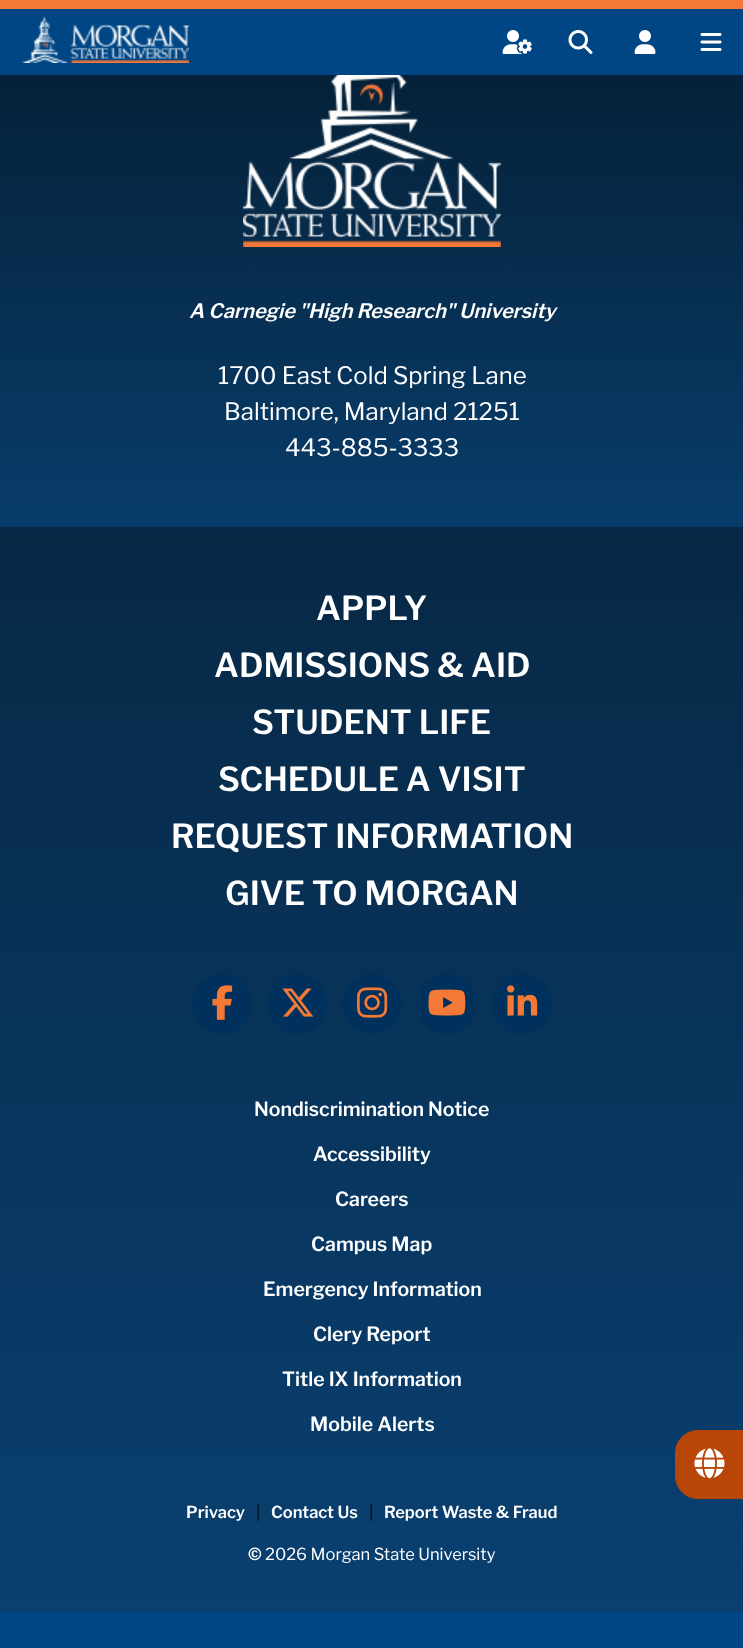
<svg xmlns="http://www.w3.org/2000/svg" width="743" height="1648">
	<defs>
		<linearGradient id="g1" gradientUnits="userSpaceOnUse" x1="372" y1="1613" x2="372" y2="-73"><stop offset="0" stop-color="#094071" /><stop offset="1" stop-color="#061B2D" /></linearGradient>
		<linearGradient id="g2" gradientUnits="userSpaceOnUse" x1="372" y1="527" x2="372" y2="-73"><stop offset="0" stop-color="#083D6B" /><stop offset="1" stop-color="#051828" /></linearGradient>
	</defs>
	<rect width="100%" height="100%" fill="#004684" />
	<rect x="0" y="0" width="743" height="9" fill="#F47937" />
	<image x="22" y="16" width="167" height="47" href="assets/img1.png" />
	<image x="502" y="30" width="30" height="24" href="assets/img2.png" />
	<image x="568" y="30" width="25" height="24" href="assets/img3.png" />
	<image x="634" y="30" width="22" height="24" href="assets/img4.png" />
	<image x="700" y="33" width="22" height="18" href="assets/img5.png" />
	<rect x="0" y="527" width="743" height="1086" fill="url(#g1)" />
	<rect x="0" y="75" width="743" height="452" fill="url(#g2)" />
	<image x="243" y="75" width="258" height="172" href="assets/img6.png" />
	<text x="189" y="318" font-family="Libre Franklin" font-size="20" font-weight="600" font-style="italic" fill="#FFFFFF">A Carnegie "High Research" University</text>
	<g font-family="Libre Franklin" font-size="24" fill="#FFFFFF">
		<text x="218" y="384">1700 East Cold Spring Lane</text>
		<text x="224" y="420">Baltimore, Maryland 21251</text>
		<text x="285" y="456">443-885-3333</text>
	</g>
	<g font-family="Libre Franklin" font-size="33" font-weight="600" fill="#FFFFFF">
		<text x="316" y="620">APPLY</text>
		<text x="214" y="677">ADMISSIONS &amp; AID</text>
		<text x="252" y="734">STUDENT LIFE</text>
		<text x="218" y="791">SCHEDULE A VISIT</text>
		<text x="171" y="848">REQUEST INFORMATION</text>
		<text x="225" y="905">GIVE TO MORGAN</text>
	</g>
	<circle cx="222" cy="1004" r="30" fill="#00315C" />
	<image x="212" y="985" width="21" height="35" href="assets/img7.png" />
	<circle cx="297" cy="1004" r="30" fill="#00315C" />
	<image x="282" y="988" width="32" height="29" href="assets/img8.png" />
	<circle cx="372" cy="1004" r="30" fill="#00315C" />
	<image x="357" y="987" width="31" height="31" href="assets/img9.png" />
	<circle cx="447" cy="1004" r="30" fill="#00315C" />
	<image x="428" y="989" width="38" height="27" href="assets/img10.png" />
	<circle cx="522" cy="1004" r="30" fill="#00315C" />
	<image x="507" y="985" width="31" height="31" href="assets/img11.png" />
	<g font-family="Libre Franklin" font-size="19.5" font-weight="600" fill="#FFFFFF">
		<text x="254" y="1116">Nondiscrimination Notice</text>
		<text x="313" y="1161">Accessibility</text>
		<text x="335" y="1206">Careers</text>
		<text x="311" y="1251">Campus Map</text>
		<text x="263" y="1296">Emergency Information</text>
		<text x="313" y="1341">Clery Report</text>
		<text x="282" y="1386">Title IX Information</text>
		<text x="310" y="1431">Mobile Alerts</text>
	</g>
	<text x="186" y="1518" font-family="Libre Franklin" font-size="16.5" font-weight="600" fill="#FFFFFF">Privacy</text>
	<text x="256" y="1518" font-family="Libre Franklin" font-size="16.5" fill="#000000">|</text>
	<text x="271" y="1518" font-family="Libre Franklin" font-size="16.5" font-weight="600" fill="#FFFFFF">Contact Us</text>
	<text x="369" y="1518" font-family="Libre Franklin" font-size="16.5" fill="#000000">|</text>
	<g font-family="Libre Franklin" font-size="16.5" font-weight="600" fill="#FFFFFF">
		<text x="384" y="1518">Report Waste &amp; Fraud</text>
		<text x="248" y="1560">©</text>
	</g>
	<text x="265" y="1560" font-family="Libre Franklin" font-size="16.5" fill="#FFFFFF">2026 Morgan State University</text>
	<path d="M698 1430H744V1499H698C685.5 1499 675 1488.5 675 1476V1453C675 1440.5 685.5 1430 698 1430Z" fill="#B94609" />
	<image x="694" y="1448" width="31" height="31" href="assets/img12.png" />
</svg>
